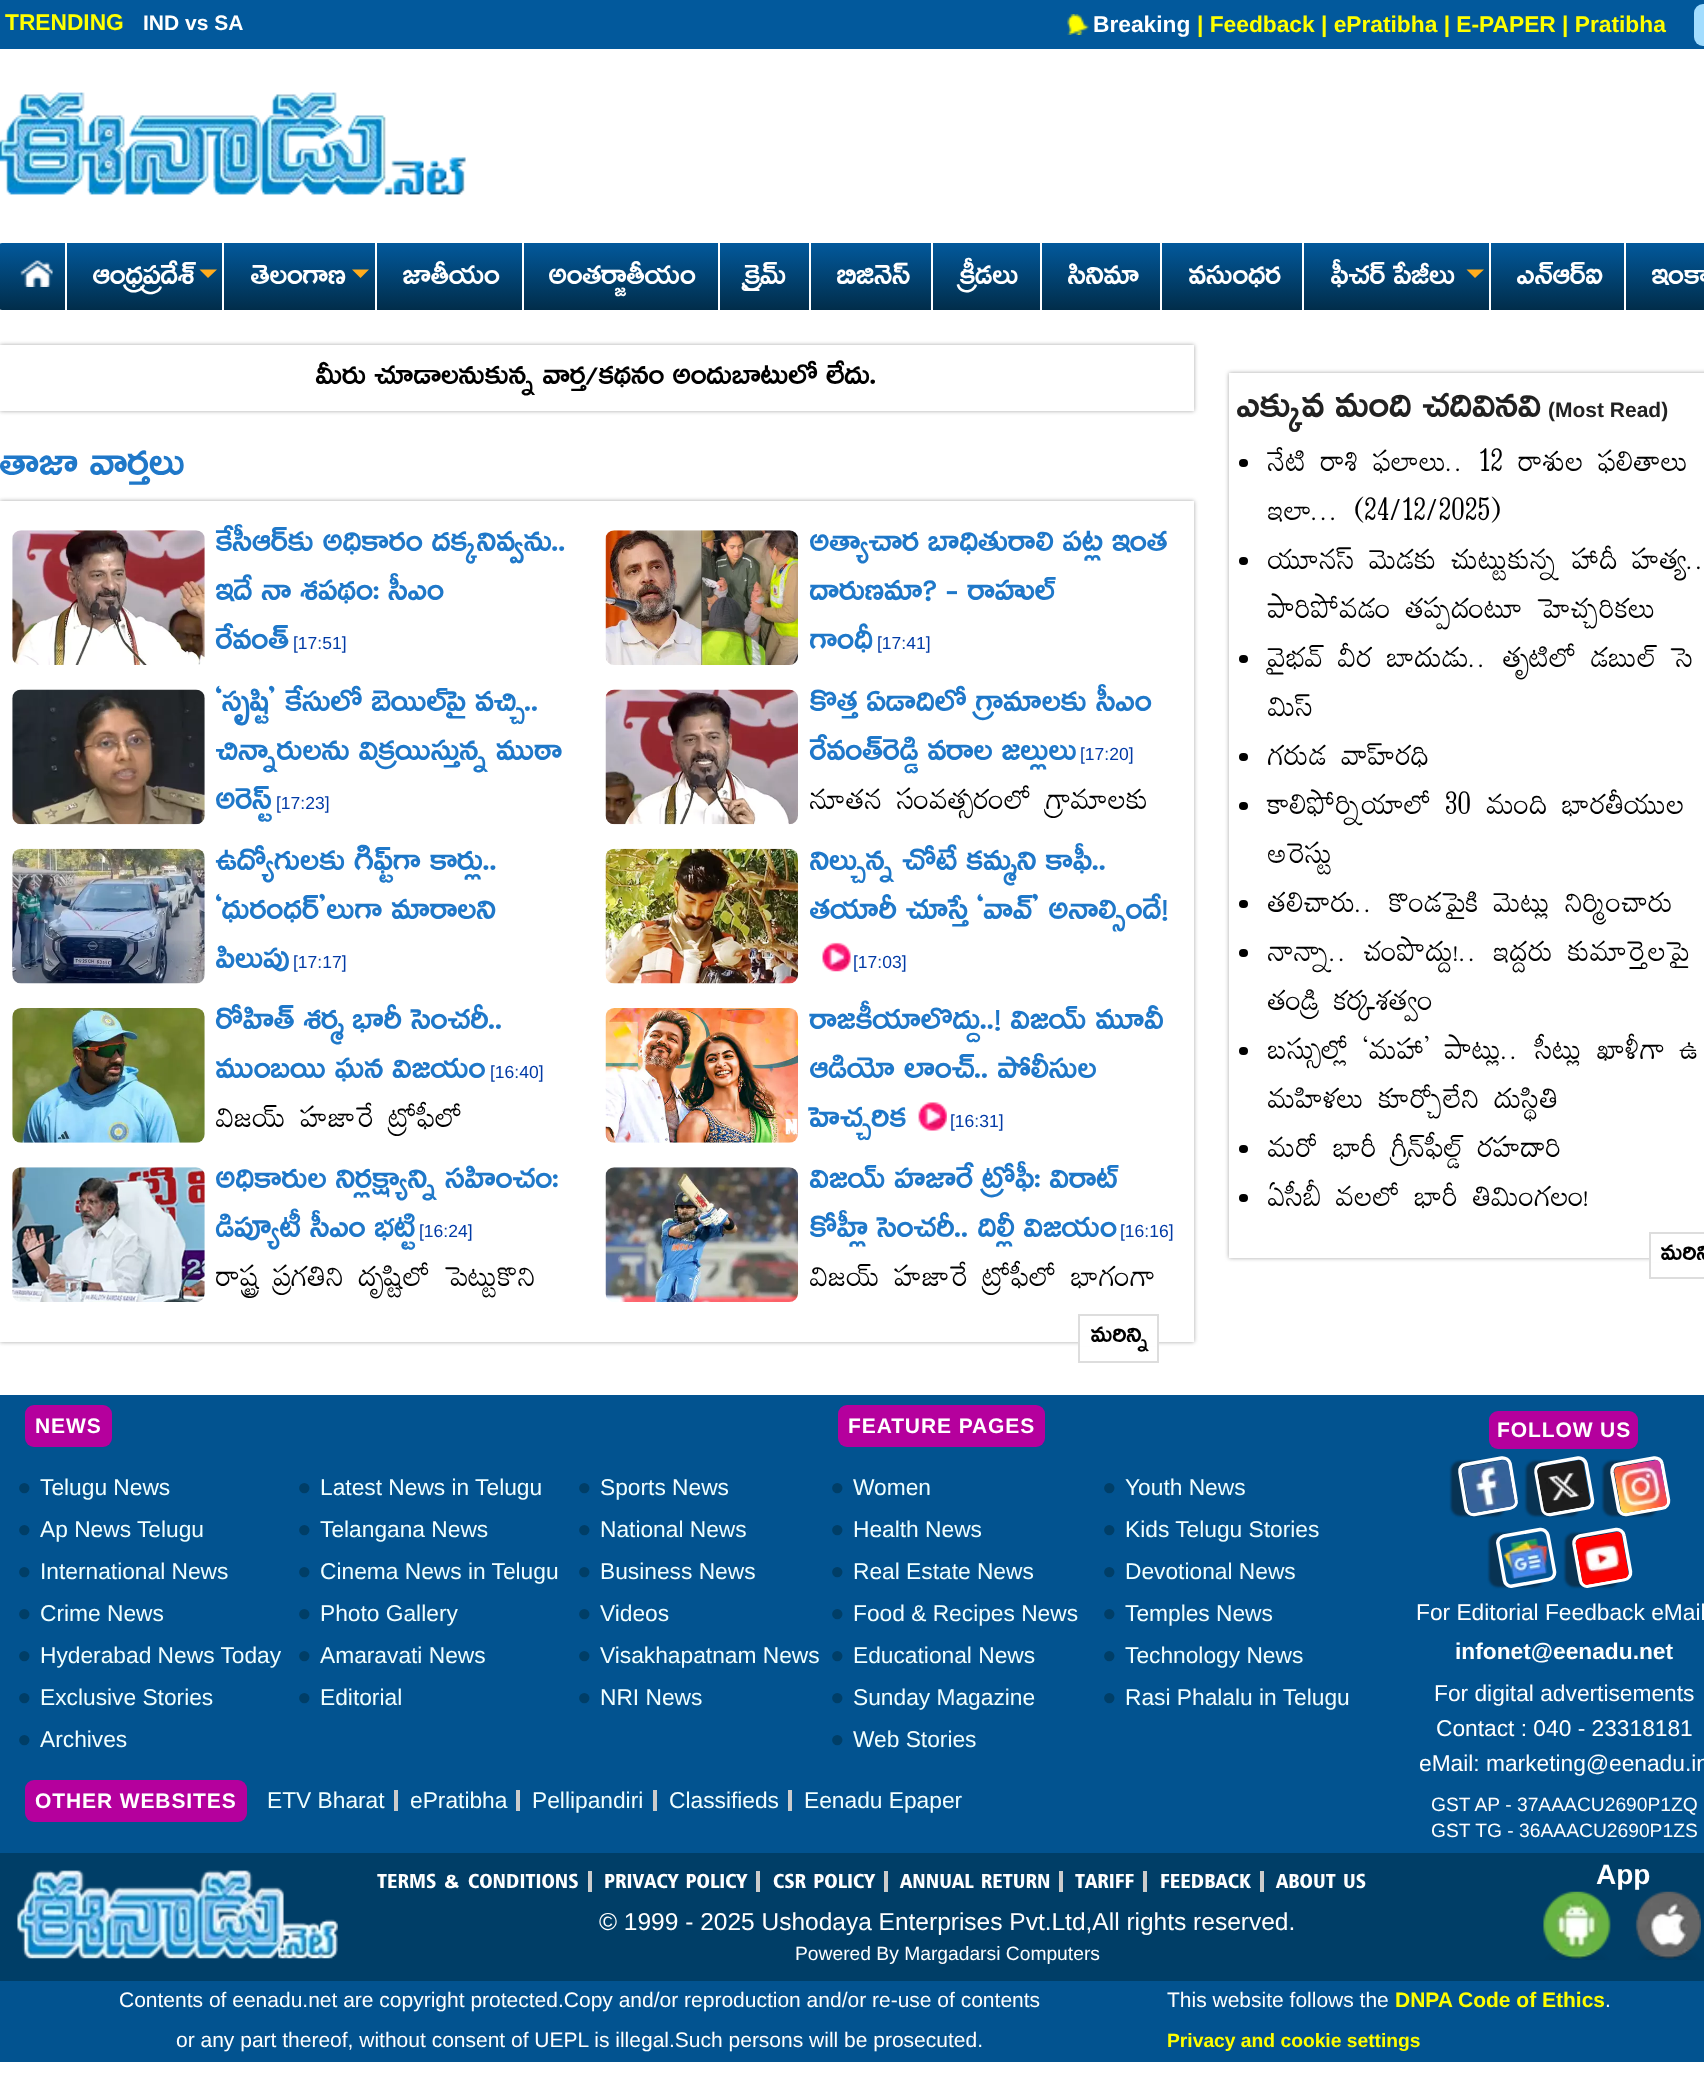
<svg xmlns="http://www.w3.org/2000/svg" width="1704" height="2091">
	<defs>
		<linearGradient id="g1" gradientUnits="userSpaceOnUse" x1="876" y1="243" x2="876" y2="310"><stop offset="0" stop-color="#02599C" /><stop offset="1" stop-color="#012D4A" /></linearGradient>
		<clipPath id="clip1"><path d="M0 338H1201V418H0ZM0 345H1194V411H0Z" clip-rule="evenodd" /></clipPath>
		<clipPath id="clip2"><path d="M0 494H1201V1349H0ZM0 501H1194V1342H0Z" clip-rule="evenodd" /></clipPath>
		<clipPath id="clip3"><path d="M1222 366H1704V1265H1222ZM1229 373H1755V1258H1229Z" clip-rule="evenodd" /></clipPath>
		<clipPath id="clip4"><path d="M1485 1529H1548V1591H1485ZM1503.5 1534.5L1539.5 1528C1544 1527 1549 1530.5 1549.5 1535L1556 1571.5C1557 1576 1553.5 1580.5 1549 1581.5L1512.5 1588C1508 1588.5 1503.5 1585.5 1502.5 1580.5L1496 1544.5C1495.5 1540 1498.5 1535 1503.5 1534.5Z" clip-rule="evenodd" /></clipPath>
	</defs>
	<rect width="100%" height="100%" fill="#FFFFFF" />
	<rect x="0" y="0" width="1704" height="49" fill="#02599C" />
	<text x="5" y="30" font-family="Liberation Sans" font-size="22.75" font-weight="700" fill="#FFFF00">TRENDING</text>
	<text x="143" y="30" font-family="Liberation Sans" font-size="21" font-weight="700" fill="#FFFFFF">IND vs SA</text>
	<image x="1067" y="14" width="22" height="21" href="assets/img1.png" />
	<text x="1093" y="32" font-family="Liberation Sans" font-size="22.75" font-weight="700" fill="#FFFFFF">Breaking</text>
	<text x="1197" y="32" font-family="Liberation Sans" font-size="22.75" font-weight="700" fill="#FFFF00">| Feedback | ePratibha | E-PAPER | Pratibha</text>
	<rect x="1694" y="4" width="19" height="42" rx="9" fill="#A2DDFF" />
	<image x="0" y="92" width="466" height="103" href="assets/img2.png" />
	<rect x="-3" y="243" width="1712" height="67" rx="5" fill="url(#g1)" />
	<rect x="65" y="243" width="2" height="67" fill="#FFFFFF" />
	<image x="20" y="260" width="33" height="27" href="assets/img3.png" />
	<rect x="222" y="243" width="2" height="67" fill="#FFFFFF" />
	<text x="93" y="284" font-family="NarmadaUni" font-size="42" fill="#FFFFFF">ఆంధ్రప్రదేశ్</text>
	<path d="M199.5 269.5H217L208 278Z" fill="#FFAC1E" />
	<rect x="375" y="243" width="2" height="67" fill="#FFFFFF" />
	<text x="251" y="284" font-family="NarmadaUni" font-size="42" fill="#FFFFFF">తెలంగాణ</text>
	<path d="M352 269.5H369L360.5 278Z" fill="#FFAC1E" />
	<rect x="522" y="243" width="2" height="67" fill="#FFFFFF" />
	<text x="403" y="284" font-family="NarmadaUni" font-size="42" fill="#FFFFFF">జాతీయం</text>
	<rect x="718" y="243" width="2" height="67" fill="#FFFFFF" />
	<text x="549" y="284" font-family="NarmadaUni" font-size="42" fill="#FFFFFF">అంతర్జాతీయం</text>
	<rect x="809" y="243" width="2" height="67" fill="#FFFFFF" />
	<text x="745" y="284" font-family="NarmadaUni" font-size="42" fill="#FFFFFF">క్రైమ్</text>
	<rect x="931" y="243" width="2" height="67" fill="#FFFFFF" />
	<text x="837" y="284" font-family="NarmadaUni" font-size="42" fill="#FFFFFF">బిజినెస్</text>
	<rect x="1040" y="243" width="2" height="67" fill="#FFFFFF" />
	<text x="960" y="284" font-family="NarmadaUni" font-size="42" fill="#FFFFFF">క్రీడలు</text>
	<rect x="1160" y="243" width="2" height="67" fill="#FFFFFF" />
	<text x="1068" y="284" font-family="NarmadaUni" font-size="42" fill="#FFFFFF">సినిమా</text>
	<rect x="1302" y="243" width="2" height="67" fill="#FFFFFF" />
	<text x="1189" y="284" font-family="NarmadaUni" font-size="42" fill="#FFFFFF">వసుంధర</text>
	<rect x="1489" y="243" width="2" height="67" fill="#FFFFFF" />
	<text x="1331" y="284" font-family="NarmadaUni" font-size="42" fill="#FFFFFF">ఫీచర్ పేజీలు</text>
	<path d="M1466.5 269.5H1484L1475 278Z" fill="#FFAC1E" />
	<rect x="1624" y="243" width="2" height="67" fill="#FFFFFF" />
	<g font-family="NarmadaUni" font-size="42" fill="#FFFFFF">
		<text x="1517" y="284">ఎన్ఆర్ఐ</text>
		<text x="1652" y="284">ఇంకా</text>
	</g>
	<g clip-path="url(#clip1)">
		<rect x="0" y="345" width="1194" height="66" fill="#A5A5A5" filter="blur(2px)" />
	</g>
	<text x="316" y="384" font-family="NarmadaUni" font-size="42" fill="#000000">మీరు చూడాలనుకున్న వార్త/కథనం అందుబాటులో లేదు.</text>
	<text x="0" y="475" font-family="NarmadaUni" font-size="58" fill="#1F78C9">తాజా వార్తలు</text>
	<g clip-path="url(#clip2)">
		<rect x="0" y="501" width="1194" height="841" fill="#A5A5A5" filter="blur(2px)" />
	</g>
	<image x="12" y="530" width="193" height="135" href="assets/img4.png" />
	<g font-family="NarmadaUni" font-size="45.5" fill="#1F78C9">
		<text x="216" y="551">కేసీఆర్‌కు అధికారం దక్కనివ్వను..</text>
		<text x="216" y="600">ఇదే నా శపథం: సీఎం</text>
		<text x="216" y="649">రేవంత్‌</text>
	</g>
	<text x="293" y="649" font-family="Liberation Sans" font-size="17.5" fill="#003AA6">[17:51]</text>
	<image x="605" y="530" width="193" height="135" href="assets/img5.png" />
	<g font-family="NarmadaUni" font-size="45.5" fill="#1F78C9">
		<text x="810" y="551">అత్యాచార బాధితురాలి పట్ల ఇంత</text>
		<text x="810" y="600">దారుణమా? - రాహుల్‌</text>
		<text x="810" y="649">గాంధీ</text>
	</g>
	<text x="877" y="649" font-family="Liberation Sans" font-size="17.5" fill="#003AA6">[17:41]</text>
	<image x="12" y="689" width="193" height="136" href="assets/img6.png" />
	<g font-family="NarmadaUni" font-size="45.5" fill="#1F78C9">
		<text x="216" y="711">‘సృష్టి’ కేసులో బెయిల్‌పై వచ్చి..</text>
		<text x="216" y="760">చిన్నారులను విక్రయిస్తున్న ముఠా</text>
		<text x="216" y="809">అరెస్ట్‌</text>
	</g>
	<text x="276" y="809" font-family="Liberation Sans" font-size="17.5" fill="#003AA6">[17:23]</text>
	<image x="605" y="689" width="193" height="136" href="assets/img7.png" />
	<g font-family="NarmadaUni" font-size="45.5" fill="#1F78C9">
		<text x="810" y="711">కొత్త ఏడాదిలో గ్రామాలకు సీఎం</text>
		<text x="810" y="760">రేవంత్‌రెడ్డి వరాల జల్లులు</text>
	</g>
	<text x="1080" y="760" font-family="Liberation Sans" font-size="17.5" fill="#003AA6">[17:20]</text>
	<text x="810" y="809" font-family="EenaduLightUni" font-size="45.5" font-weight="300" fill="#000000">నూతన సంవత్సరంలో గ్రామాలకు</text>
	<image x="12" y="848" width="193" height="136" href="assets/img8.png" />
	<g font-family="NarmadaUni" font-size="45.5" fill="#1F78C9">
		<text x="216" y="870">ఉద్యోగులకు గిఫ్ట్‌గా కార్లు..</text>
		<text x="216" y="919">‘ధురంధర్‌’లుగా మారాలని</text>
		<text x="216" y="968">పిలుపు</text>
	</g>
	<text x="293" y="968" font-family="Liberation Sans" font-size="17.5" fill="#003AA6">[17:17]</text>
	<image x="605" y="848" width="193" height="136" href="assets/img9.png" />
	<g font-family="NarmadaUni" font-size="45.5" fill="#1F78C9">
		<text x="810" y="870">నిల్చున్న చోటే కమ్మని కాఫీ..</text>
		<text x="810" y="919">తయారీ చూస్తే ‘వావ్‌’ అనాల్సిందే!</text>
	</g>
	<image x="822" y="942" width="29" height="30" href="assets/img10.png" />
	<text x="853" y="968" font-family="Liberation Sans" font-size="17.5" fill="#003AA6">[17:03]</text>
	<image x="12" y="1008" width="193" height="135" href="assets/img11.png" />
	<g font-family="NarmadaUni" font-size="45.5" fill="#1F78C9">
		<text x="216" y="1029">రోహిత్‌ శర్మ భారీ సెంచరీ..</text>
		<text x="216" y="1078">ముంబయి ఘన విజయం</text>
	</g>
	<text x="490" y="1078" font-family="Liberation Sans" font-size="17.5" fill="#003AA6">[16:40]</text>
	<text x="216" y="1127" font-family="EenaduLightUni" font-size="45.5" font-weight="300" fill="#000000">విజయ్‌ హజారే ట్రోఫీలో</text>
	<image x="605" y="1008" width="193" height="135" href="assets/img12.png" />
	<g font-family="NarmadaUni" font-size="45.5" fill="#1F78C9">
		<text x="810" y="1029">రాజకీయాలొద్దు..! విజయ్ మూవీ</text>
		<text x="810" y="1078">ఆడియో లాంచ్‌.. పోలీసుల</text>
		<text x="810" y="1127">హెచ్చరిక</text>
	</g>
	<image x="918" y="1102" width="29" height="29" href="assets/img13.png" />
	<text x="950" y="1127" font-family="Liberation Sans" font-size="17.5" fill="#003AA6">[16:31]</text>
	<image x="12" y="1167" width="193" height="135" href="assets/img14.png" />
	<g font-family="NarmadaUni" font-size="45.5" fill="#1F78C9">
		<text x="216" y="1188">అధికారుల నిర్లక్ష్యాన్ని సహించం:</text>
		<text x="216" y="1237">డిప్యూటీ సీఎం భట్టి</text>
	</g>
	<text x="419" y="1237" font-family="Liberation Sans" font-size="17.5" fill="#003AA6">[16:24]</text>
	<text x="216" y="1286" font-family="EenaduLightUni" font-size="45.5" font-weight="300" fill="#000000">రాష్ట్ర ప్రగతిని దృష్టిలో పెట్టుకొని</text>
	<image x="605" y="1167" width="193" height="135" href="assets/img15.png" />
	<g font-family="NarmadaUni" font-size="45.5" fill="#1F78C9">
		<text x="810" y="1188">విజయ్‌ హజారే ట్రోఫీ: విరాట్‌</text>
		<text x="810" y="1237">కోహ్లీ సెంచరీ.. దిల్లీ విజయం</text>
	</g>
	<text x="1120" y="1237" font-family="Liberation Sans" font-size="17.5" fill="#003AA6">[16:16]</text>
	<text x="810" y="1286" font-family="EenaduLightUni" font-size="45.5" font-weight="300" fill="#000000">విజయ్‌ హజారే ట్రోఫీలో భాగంగా</text>
	<rect x="1080" y="1342" width="77" height="4" fill="#FFFFFF" />
	<rect x="1079" y="1315" width="79" height="47" fill="none" stroke="#DDDDDD" stroke-width="2" />
	<text x="1091" y="1342" font-family="NarmadaUni" font-size="35" fill="#000000">మరిన్ని</text>
	<g clip-path="url(#clip3)">
		<rect x="1229" y="373" width="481" height="885" fill="#A5A5A5" filter="blur(2px)" />
	</g>
	<text x="1237" y="417" font-family="NarmadaUni" font-size="54.25" fill="#222222">ఎక్కువ మంది చదివినవి</text>
	<text x="1548" y="417" font-family="Liberation Sans" font-size="21" font-weight="700" fill="#222222">(Most Read)</text>
	<rect x="1239" y="459" width="9" height="8" rx="4" fill="#000000" />
	<g font-family="EenaduLightUni" font-size="45.5" font-weight="300" fill="#000000">
		<text x="1268" y="471">నేటి రాశి ఫలాలు.. 12 రాశుల ఫలితాలు</text>
		<text x="1268" y="520">ఇలా... (24/12/2025)</text>
	</g>
	<rect x="1239" y="557" width="9" height="8" rx="4" fill="#000000" />
	<g font-family="EenaduLightUni" font-size="45.5" font-weight="300" fill="#000000">
		<text x="1268" y="569">యూనస్‌ మెడకు చుట్టుకున్న హాదీ హత్య..</text>
		<text x="1268" y="618">పారిపోవడం తప్పదంటూ హెచ్చరికలు</text>
	</g>
	<rect x="1239" y="655" width="9" height="8" rx="4" fill="#000000" />
	<g font-family="EenaduLightUni" font-size="45.5" font-weight="300" fill="#000000">
		<text x="1268" y="667">వైభవ్‌ వీర బాదుడు.. తృటిలో డబుల్‌ సె</text>
		<text x="1268" y="716">మిస్‌</text>
	</g>
	<rect x="1239" y="753" width="9" height="8" rx="4" fill="#000000" />
	<text x="1268" y="765" font-family="EenaduLightUni" font-size="45.5" font-weight="300" fill="#000000">గరుడ వాహ్‌రధి</text>
	<rect x="1239" y="802" width="9" height="8" rx="4" fill="#000000" />
	<g font-family="EenaduLightUni" font-size="45.5" font-weight="300" fill="#000000">
		<text x="1268" y="814">కాలిఫోర్నియాలో 30 మంది భారతీయుల</text>
		<text x="1268" y="863">అరెస్టు</text>
	</g>
	<rect x="1239" y="900" width="9" height="8" rx="4" fill="#000000" />
	<text x="1268" y="912" font-family="EenaduLightUni" font-size="45.5" font-weight="300" fill="#000000">తలిచారు.. కొండపైకి మెట్లు నిర్మించారు</text>
	<rect x="1239" y="949" width="9" height="8" rx="4" fill="#000000" />
	<g font-family="EenaduLightUni" font-size="45.5" font-weight="300" fill="#000000">
		<text x="1268" y="961">నాన్నా.. చంపొద్దు!.. ఇద్దరు కుమార్తెలపై</text>
		<text x="1268" y="1010">తండ్రి కర్కశత్వం</text>
	</g>
	<rect x="1239" y="1047" width="9" height="8" rx="4" fill="#000000" />
	<g font-family="EenaduLightUni" font-size="45.5" font-weight="300" fill="#000000">
		<text x="1268" y="1059">బస్సుల్లో ‘మహా’ పాట్లు.. సీట్లు ఖాళీగా ఉ</text>
		<text x="1268" y="1108">మహిళలు కూర్చోలేని దుస్థితి</text>
	</g>
	<rect x="1239" y="1145" width="9" height="8" rx="4" fill="#000000" />
	<text x="1268" y="1157" font-family="EenaduLightUni" font-size="45.5" font-weight="300" fill="#000000">మరో భారీ గ్రీన్‌ఫీల్డ్‌ రహదారి</text>
	<rect x="1239" y="1194" width="9" height="8" rx="4" fill="#000000" />
	<text x="1268" y="1206" font-family="EenaduLightUni" font-size="45.5" font-weight="300" fill="#000000">ఏసీబీ వలలో భారీ తిమింగలం!</text>
	<rect x="1651" y="1258" width="53" height="4" fill="#FFFFFF" />
	<rect x="1650" y="1233" width="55" height="45" fill="none" stroke="#DDDDDD" stroke-width="2" />
	<text x="1661" y="1260" font-family="NarmadaUni" font-size="35" fill="#000000">మరిన్ని</text>
	<rect x="0" y="1395" width="1704" height="667" fill="#025390" />
	<rect x="25" y="1405" width="87" height="42" rx="9" fill="#B5009D" />
	<text x="35" y="1433" font-family="Liberation Sans" font-size="21" font-weight="700" letter-spacing="0.9" fill="#FFFFFF">NEWS</text>
	<text x="18" y="1500" font-family="Liberation Sans" font-size="36" font-weight="700" fill="#003E67">•</text>
	<text x="40" y="1495" font-family="Liberation Sans" font-size="22.75" fill="#F0FFFF">Telugu News</text>
	<text x="298" y="1500" font-family="Liberation Sans" font-size="36" font-weight="700" fill="#003E67">•</text>
	<text x="320" y="1495" font-family="Liberation Sans" font-size="22.75" fill="#F0FFFF">Latest News in Telugu</text>
	<text x="578" y="1500" font-family="Liberation Sans" font-size="36" font-weight="700" fill="#003E67">•</text>
	<text x="600" y="1495" font-family="Liberation Sans" font-size="22.75" fill="#F0FFFF">Sports News</text>
	<text x="18" y="1542" font-family="Liberation Sans" font-size="36" font-weight="700" fill="#003E67">•</text>
	<text x="40" y="1537" font-family="Liberation Sans" font-size="22.75" fill="#F0FFFF">Ap News Telugu</text>
	<text x="298" y="1542" font-family="Liberation Sans" font-size="36" font-weight="700" fill="#003E67">•</text>
	<text x="320" y="1537" font-family="Liberation Sans" font-size="22.75" fill="#F0FFFF">Telangana News</text>
	<text x="578" y="1542" font-family="Liberation Sans" font-size="36" font-weight="700" fill="#003E67">•</text>
	<text x="600" y="1537" font-family="Liberation Sans" font-size="22.75" fill="#F0FFFF">National News</text>
	<text x="18" y="1584" font-family="Liberation Sans" font-size="36" font-weight="700" fill="#003E67">•</text>
	<text x="40" y="1579" font-family="Liberation Sans" font-size="22.75" fill="#F0FFFF">International News</text>
	<text x="298" y="1584" font-family="Liberation Sans" font-size="36" font-weight="700" fill="#003E67">•</text>
	<text x="320" y="1579" font-family="Liberation Sans" font-size="22.75" fill="#F0FFFF">Cinema News in Telugu</text>
	<text x="578" y="1584" font-family="Liberation Sans" font-size="36" font-weight="700" fill="#003E67">•</text>
	<text x="600" y="1579" font-family="Liberation Sans" font-size="22.75" fill="#F0FFFF">Business News</text>
	<text x="18" y="1626" font-family="Liberation Sans" font-size="36" font-weight="700" fill="#003E67">•</text>
	<text x="40" y="1621" font-family="Liberation Sans" font-size="22.75" fill="#F0FFFF">Crime News</text>
	<text x="298" y="1626" font-family="Liberation Sans" font-size="36" font-weight="700" fill="#003E67">•</text>
	<text x="320" y="1621" font-family="Liberation Sans" font-size="22.75" fill="#F0FFFF">Photo Gallery</text>
	<text x="578" y="1626" font-family="Liberation Sans" font-size="36" font-weight="700" fill="#003E67">•</text>
	<text x="600" y="1621" font-family="Liberation Sans" font-size="22.75" fill="#F0FFFF">Videos</text>
	<text x="18" y="1668" font-family="Liberation Sans" font-size="36" font-weight="700" fill="#003E67">•</text>
	<text x="40" y="1663" font-family="Liberation Sans" font-size="22.75" fill="#F0FFFF">Hyderabad News Today</text>
	<text x="298" y="1668" font-family="Liberation Sans" font-size="36" font-weight="700" fill="#003E67">•</text>
	<text x="320" y="1663" font-family="Liberation Sans" font-size="22.75" fill="#F0FFFF">Amaravati News</text>
	<text x="578" y="1668" font-family="Liberation Sans" font-size="36" font-weight="700" fill="#003E67">•</text>
	<text x="600" y="1663" font-family="Liberation Sans" font-size="22.75" fill="#F0FFFF">Visakhapatnam News</text>
	<text x="18" y="1710" font-family="Liberation Sans" font-size="36" font-weight="700" fill="#003E67">•</text>
	<text x="40" y="1705" font-family="Liberation Sans" font-size="22.75" fill="#F0FFFF">Exclusive Stories</text>
	<text x="298" y="1710" font-family="Liberation Sans" font-size="36" font-weight="700" fill="#003E67">•</text>
	<text x="320" y="1705" font-family="Liberation Sans" font-size="22.75" fill="#F0FFFF">Editorial</text>
	<text x="578" y="1710" font-family="Liberation Sans" font-size="36" font-weight="700" fill="#003E67">•</text>
	<text x="600" y="1705" font-family="Liberation Sans" font-size="22.75" fill="#F0FFFF">NRI News</text>
	<text x="18" y="1752" font-family="Liberation Sans" font-size="36" font-weight="700" fill="#003E67">•</text>
	<text x="40" y="1747" font-family="Liberation Sans" font-size="22.75" fill="#F0FFFF">Archives</text>
	<rect x="838" y="1405" width="207" height="42" rx="9" fill="#B5009D" />
	<text x="848" y="1433" font-family="Liberation Sans" font-size="21" font-weight="700" letter-spacing="0.9" fill="#FFFFFF">FEATURE PAGES</text>
	<text x="831" y="1500" font-family="Liberation Sans" font-size="36" font-weight="700" fill="#003E67">•</text>
	<text x="853" y="1495" font-family="Liberation Sans" font-size="22.75" fill="#F0FFFF">Women</text>
	<text x="1103" y="1500" font-family="Liberation Sans" font-size="36" font-weight="700" fill="#003E67">•</text>
	<text x="1125" y="1495" font-family="Liberation Sans" font-size="22.75" fill="#F0FFFF">Youth News</text>
	<text x="831" y="1542" font-family="Liberation Sans" font-size="36" font-weight="700" fill="#003E67">•</text>
	<text x="853" y="1537" font-family="Liberation Sans" font-size="22.75" fill="#F0FFFF">Health News</text>
	<text x="1103" y="1542" font-family="Liberation Sans" font-size="36" font-weight="700" fill="#003E67">•</text>
	<text x="1125" y="1537" font-family="Liberation Sans" font-size="22.75" fill="#F0FFFF">Kids Telugu Stories</text>
	<text x="831" y="1584" font-family="Liberation Sans" font-size="36" font-weight="700" fill="#003E67">•</text>
	<text x="853" y="1579" font-family="Liberation Sans" font-size="22.75" fill="#F0FFFF">Real Estate News</text>
	<text x="1103" y="1584" font-family="Liberation Sans" font-size="36" font-weight="700" fill="#003E67">•</text>
	<text x="1125" y="1579" font-family="Liberation Sans" font-size="22.75" fill="#F0FFFF">Devotional News</text>
	<text x="831" y="1626" font-family="Liberation Sans" font-size="36" font-weight="700" fill="#003E67">•</text>
	<text x="853" y="1621" font-family="Liberation Sans" font-size="22.75" fill="#F0FFFF">Food &amp; Recipes News</text>
	<text x="1103" y="1626" font-family="Liberation Sans" font-size="36" font-weight="700" fill="#003E67">•</text>
	<text x="1125" y="1621" font-family="Liberation Sans" font-size="22.75" fill="#F0FFFF">Temples News</text>
	<text x="831" y="1668" font-family="Liberation Sans" font-size="36" font-weight="700" fill="#003E67">•</text>
	<text x="853" y="1663" font-family="Liberation Sans" font-size="22.75" fill="#F0FFFF">Educational News</text>
	<text x="1103" y="1668" font-family="Liberation Sans" font-size="36" font-weight="700" fill="#003E67">•</text>
	<text x="1125" y="1663" font-family="Liberation Sans" font-size="22.75" fill="#F0FFFF">Technology News</text>
	<text x="831" y="1710" font-family="Liberation Sans" font-size="36" font-weight="700" fill="#003E67">•</text>
	<text x="853" y="1705" font-family="Liberation Sans" font-size="22.75" fill="#F0FFFF">Sunday Magazine</text>
	<text x="1103" y="1710" font-family="Liberation Sans" font-size="36" font-weight="700" fill="#003E67">•</text>
	<text x="1125" y="1705" font-family="Liberation Sans" font-size="22.75" fill="#F0FFFF">Rasi Phalalu in Telugu</text>
	<text x="831" y="1752" font-family="Liberation Sans" font-size="36" font-weight="700" fill="#003E67">•</text>
	<text x="853" y="1747" font-family="Liberation Sans" font-size="22.75" fill="#F0FFFF">Web Stories</text>
	<rect x="25" y="1780" width="222" height="42" rx="9" fill="#B5009D" />
	<text x="35" y="1808" font-family="Liberation Sans" font-size="21" font-weight="700" letter-spacing="0.9" fill="#FFFFFF">OTHER WEBSITES</text>
	<text x="267" y="1808" font-family="Liberation Sans" font-size="22.75" fill="#F0FFFF">ETV Bharat</text>
	<rect x="394" y="1790" width="4" height="21" fill="#CCCCCC" />
	<text x="410" y="1808" font-family="Liberation Sans" font-size="22.75" fill="#F0FFFF">ePratibha</text>
	<rect x="516" y="1790" width="4" height="21" fill="#CCCCCC" />
	<text x="532" y="1808" font-family="Liberation Sans" font-size="22.75" fill="#F0FFFF">Pellipandiri</text>
	<rect x="653" y="1790" width="4" height="21" fill="#CCCCCC" />
	<text x="669" y="1808" font-family="Liberation Sans" font-size="22.75" fill="#F0FFFF">Classifieds</text>
	<rect x="788" y="1790" width="4" height="21" fill="#CCCCCC" />
	<text x="804" y="1808" font-family="Liberation Sans" font-size="22.75" fill="#F0FFFF">Eenadu Epaper</text>
	<rect x="1489" y="1411" width="149" height="38" rx="9" fill="#B4009D" />
	<text x="1497" y="1437" font-family="Liberation Sans" font-size="21" font-weight="700" letter-spacing="0.9" fill="#FFFFFF">FOLLOW US</text>
	<rect x="1451" y="1461" width="54" height="55" rx="9" fill="#0F0F0F" fill-opacity="0.47" filter="blur(1px)" />
	<path d="M1465.5 1464.5L1501.5 1458C1505.5 1457.5 1509 1460 1510 1463.5L1516 1500C1517 1503.5 1514.5 1507.5 1510.5 1508L1474.5 1514.5C1470.5 1515 1467 1512.5 1466 1508.5L1460 1472.5C1459 1468.5 1461.5 1465 1465.5 1464.5Z" fill="none" stroke="#FFFFFF" stroke-width="3.5" />
	<rect x="1526" y="1461" width="54" height="55" rx="9" fill="#0F0F0F" fill-opacity="0.47" filter="blur(1px)" />
	<path d="M1541.5 1464.5L1578 1458C1581.5 1457.5 1585 1460 1586 1463.5L1592.5 1500C1593 1503.5 1590.5 1507.5 1586.5 1508L1550.5 1514.5C1546.5 1515 1543 1512.5 1542.5 1508.5L1536 1472.5C1535 1468.5 1538 1465 1541.5 1464.5Z" fill="none" stroke="#FFFFFF" stroke-width="3.5" />
	<rect x="1603" y="1461" width="54" height="55" rx="9" fill="#0F0F0F" fill-opacity="0.47" filter="blur(1px)" />
	<path d="M1617.5 1464.5L1654 1458C1657.5 1457.5 1661.5 1460 1662 1463.5L1668.5 1500C1669 1503.5 1666.5 1507.5 1662.5 1508L1626.5 1514.5C1622.5 1515 1619 1512.5 1618.5 1508.5L1612 1472.5C1611.5 1468.5 1614 1465 1617.5 1464.5Z" fill="none" stroke="#FFFFFF" stroke-width="3.5" />
	<image x="1462" y="1460" width="53" height="54" href="assets/img16.png" />
	<image x="1537" y="1460" width="53" height="54" href="assets/img17.png" />
	<image x="1614" y="1460" width="53" height="54" href="assets/img18.png" />
	<g clip-path="url(#clip4)">
		<rect x="1489" y="1533" width="55" height="54" rx="9" fill="#0F0F0F" fill-opacity="0.47" filter="blur(1px)" />
	</g>
	<path d="M1503.5 1536L1540 1529.5C1543.5 1529 1547 1531.5 1548 1535.5L1554.5 1571.5C1555 1575.5 1552.5 1579 1548.5 1579.5L1512.5 1586C1508.5 1587 1505 1584 1504.5 1580.5L1498 1544C1497 1540.5 1500 1537 1503.5 1536Z" fill="none" stroke="#FFFFFF" stroke-width="3.5" />
	<rect x="1565" y="1533" width="54" height="54" rx="9" fill="#0F0F0F" fill-opacity="0.47" filter="blur(1px)" />
	<path d="M1579.5 1536L1616 1529.5C1619.5 1529 1623.5 1531.5 1624 1535.5L1630.5 1571.5C1631 1575.5 1628.5 1579 1624.5 1579.5L1588.5 1586C1584.5 1587 1581 1584 1580.5 1580.5L1574 1544C1573.5 1540.5 1576 1537 1579.5 1536Z" fill="none" stroke="#FFFFFF" stroke-width="3.5" />
	<image x="1503" y="1538" width="45" height="41" href="assets/img19.png" />
	<image x="1575" y="1531" width="54" height="54" href="assets/img20.png" />
	<text x="1416" y="1620" font-family="Liberation Sans" font-size="22.75" fill="#FFFFFF">For Editorial Feedback eMail</text>
	<text x="1455" y="1659" font-family="Liberation Sans" font-size="22.75" font-weight="700" fill="#FFFFFF">infonet@eenadu.net</text>
	<g font-family="Liberation Sans" font-size="22.75" fill="#FFFFFF">
		<text x="1434" y="1701">For digital advertisements</text>
		<text x="1436" y="1736">Contact : 040 - 23318181</text>
		<text x="1419" y="1771">eMail: marketing@eenadu.in</text>
	</g>
	<g font-family="Liberation Sans" font-size="19.25" fill="#FFFFFF">
		<text x="1431" y="1811">GST AP - 37AAACU2690P1ZQ</text>
		<text x="1431" y="1837">GST TG - 36AAACU2690P1ZS</text>
	</g>
	<rect x="0" y="1853" width="1704" height="128" fill="#003E67" />
	<image x="17" y="1870" width="321" height="89" href="assets/img21.png" />
	<text x="377" y="1888" font-family="NarmadaUni" font-size="36.75" fill="#FFFFFF">TERMS &amp; CONDITIONS</text>
	<rect x="588" y="1871" width="4" height="21" fill="#CCCCCC" />
	<text x="604" y="1888" font-family="NarmadaUni" font-size="36.75" fill="#FFFFFF">PRIVACY POLICY</text>
	<rect x="756" y="1871" width="4" height="21" fill="#CCCCCC" />
	<text x="773" y="1888" font-family="NarmadaUni" font-size="36.75" fill="#FFFFFF">CSR POLICY</text>
	<rect x="884" y="1871" width="4" height="21" fill="#CCCCCC" />
	<text x="900" y="1888" font-family="NarmadaUni" font-size="36.75" fill="#FFFFFF">ANNUAL RETURN</text>
	<rect x="1059" y="1871" width="4" height="21" fill="#CCCCCC" />
	<text x="1075" y="1888" font-family="NarmadaUni" font-size="36.75" fill="#FFFFFF">TARIFF</text>
	<rect x="1143" y="1871" width="4" height="21" fill="#CCCCCC" />
	<text x="1160" y="1888" font-family="NarmadaUni" font-size="36.75" fill="#FFFFFF">FEEDBACK</text>
	<rect x="1260" y="1871" width="4" height="21" fill="#CCCCCC" />
	<text x="1276" y="1888" font-family="NarmadaUni" font-size="36.75" fill="#FFFFFF">ABOUT US</text>
	<text x="599" y="1930" font-family="Liberation Sans" font-size="24.5" fill="#FFFFFF">© 1999 - 2025 Ushodaya Enterprises Pvt.Ltd,All rights reserved.</text>
	<text x="795" y="1960" font-family="Liberation Sans" font-size="19.25" fill="#FFFFFF">Powered By Margadarsi Computers</text>
	<text x="1596" y="1884" font-family="Liberation Sans" font-size="28" font-weight="700" fill="#FFFFFF">App</text>
	<image x="1543" y="1891" width="68" height="69" href="assets/img22.png" />
	<image x="1633" y="1891" width="68" height="69" href="assets/img23.png" />
	<g font-family="Liberation Sans" font-size="21" fill="#FFFFFF">
		<text x="119" y="2007">Contents of eenadu.net are copyright protected.Copy and/or reproduction and/or re-use of contents</text>
		<text x="176" y="2047">or any part thereof, without consent of UEPL is illegal.Such persons will be prosecuted.</text>
		<text x="1167" y="2007">This website follows the</text>
	</g>
	<text x="1395" y="2007" font-family="Liberation Sans" font-size="21" font-weight="700" fill="#FFFF00">DNPA Code of Ethics</text>
	<text x="1605" y="2007" font-family="Liberation Sans" font-size="21" fill="#FFFFFF">.</text>
	<text x="1167" y="2047" font-family="Liberation Sans" font-size="19.25" font-weight="700" fill="#FFFF00">Privacy and cookie settings</text>
</svg>
